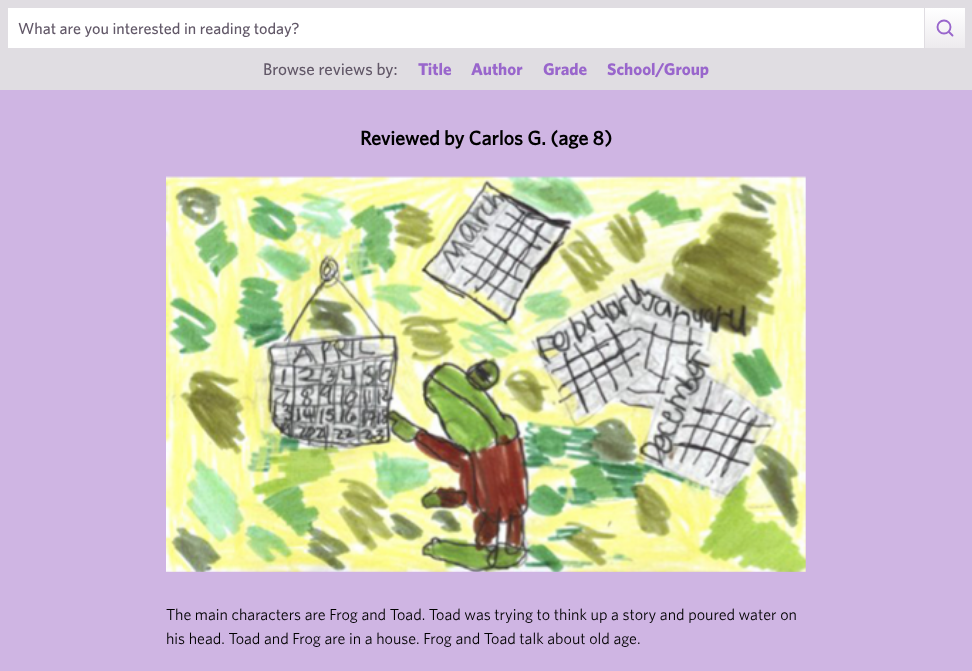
<svg xmlns="http://www.w3.org/2000/svg" width="972" height="671">
	<defs>
		<linearGradient id="g1" gradientUnits="userSpaceOnUse" x1="926" y1="48" x2="926" y2="-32"><stop offset="0" stop-color="#EDEBEE" /><stop offset="0.5" stop-color="#FFFFFF" /></linearGradient>
	</defs>
	<rect width="100%" height="100%" fill="#CFB5E3" />
	<rect x="0" y="0" width="972" height="90" fill="#E0DDE2" />
	<rect x="8" y="8" width="916" height="40" fill="#FFFFFF" />
	<text x="18" y="34" font-family="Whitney" font-size="16" font-weight="500" fill="#625868">What are you interested in reading today?</text>
	<rect x="925" y="8" width="40" height="40" fill="url(#g1)" />
	<circle cx="944" cy="27" r="6.5" fill="none" stroke="#9966CC" stroke-width="1.9" />
	<path d="M952.5 35.5L949 32" fill="none" stroke="#9966CC" stroke-width="1.9" stroke-linecap="round" stroke-linejoin="round" />
	<text x="263" y="75" font-family="Whitney" font-size="17" font-weight="500" fill="#625868">Browse reviews by:</text>
	<g font-family="'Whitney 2'" font-size="17" font-weight="700" fill="#9966CC">
		<text x="418" y="75">Title</text>
		<text x="471" y="75">Author</text>
		<text x="543" y="75">Grade</text>
		<text x="607" y="75">School/Group</text>
	</g>
	<text x="360" y="145" font-family="Whitney" font-size="20" font-weight="700" fill="#000000">Reviewed by Carlos G. (age 8)</text>
	<image x="166" y="176" width="640" height="396" href="assets/img1.png" />
	<g font-family="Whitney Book" font-size="16" fill="#000000">
		<text x="166" y="620">The main characters are Frog and Toad. Toad was trying to think up a story and poured water on</text>
		<text x="166" y="644">his head. Toad and Frog are in a house. Frog and Toad talk about old age.</text>
	</g>
</svg>
